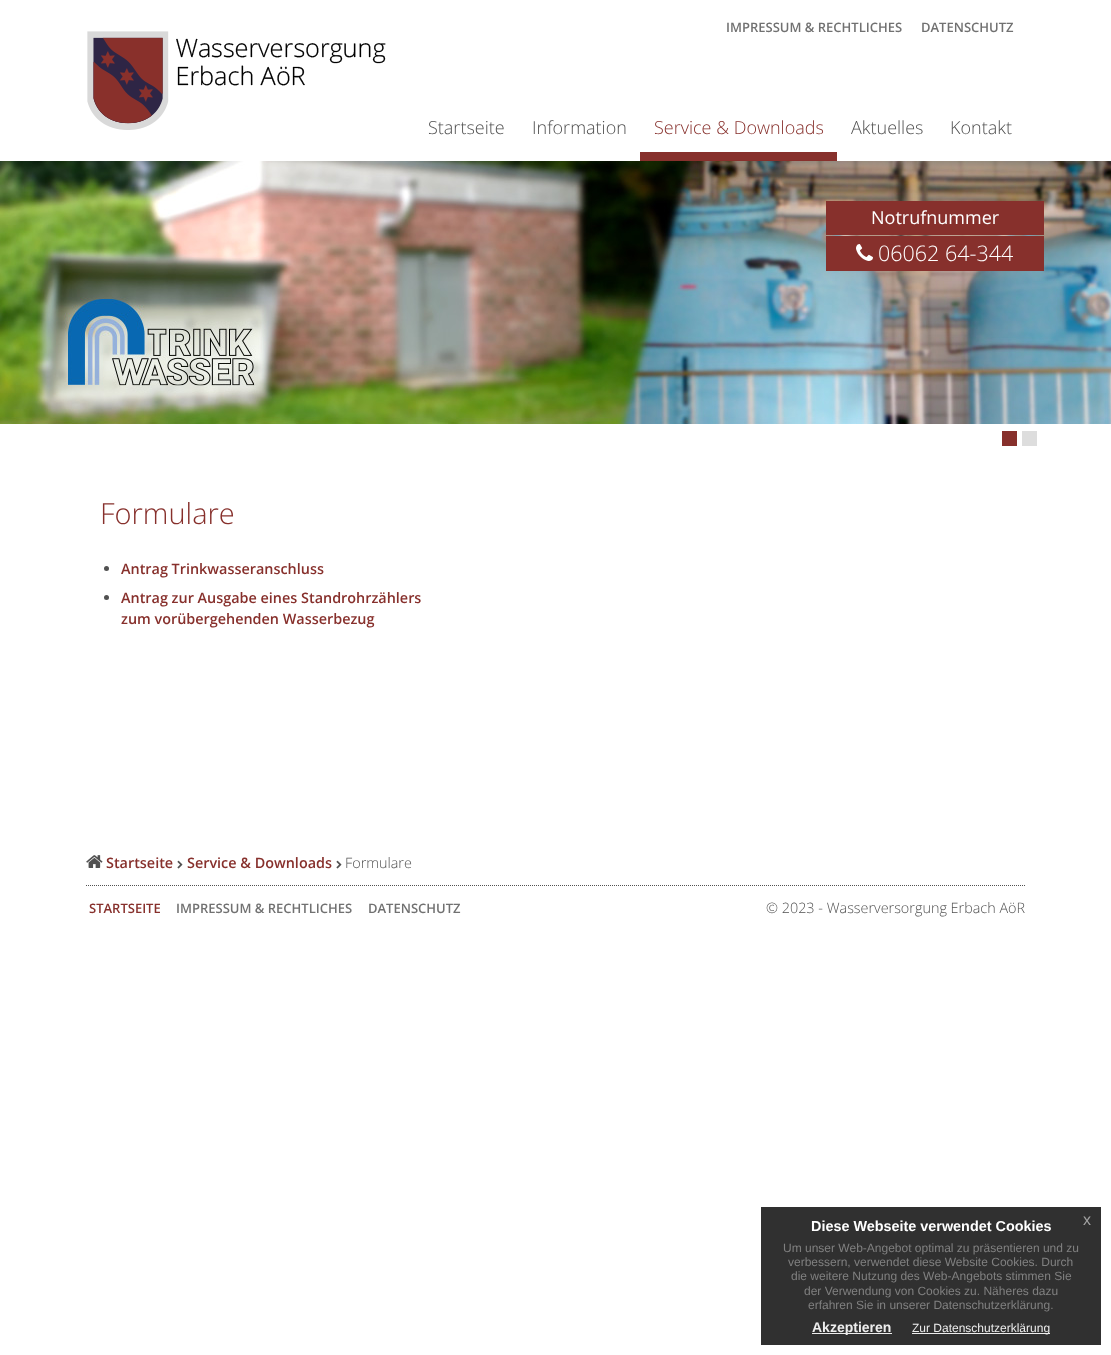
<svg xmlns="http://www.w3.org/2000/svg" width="1111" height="1355">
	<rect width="100%" height="100%" fill="#FFFFFF" />
	<g font-family="Open Sans" font-size="13" font-weight="600" fill="#717171">
		<text x="726" y="32">IMPRESSUM &amp; RECHTLICHES</text>
		<text x="921" y="32">DATENSCHUTZ</text>
	</g>
	<image x="87" y="31" width="299" height="99" href="assets/img1.png" />
	<g font-family="Open Sans" font-size="18" font-weight="300" fill="#515151">
		<text x="428" y="134">Startseite</text>
		<text x="532" y="134">Information</text>
	</g>
	<rect x="640" y="152" width="197" height="9" fill="#87302C" />
	<text x="654" y="134" font-family="Open Sans" font-size="18" font-weight="300" fill="#87302C">Service &amp; Downloads</text>
	<g font-family="Open Sans" font-size="18" font-weight="300" fill="#515151">
		<text x="851" y="134">Aktuelles</text>
		<text x="950" y="134">Kontakt</text>
	</g>
	<image x="0" y="161" width="1111" height="263" href="assets/img2.png" />
	<rect x="826" y="201" width="218" height="34" fill="#87302C" />
	<text x="871" y="224" font-family="Open Sans" font-size="18" fill="#FFFFFF">Notrufnummer</text>
	<rect x="826" y="236" width="218" height="35" fill="#87302C" />
	<image x="856" y="244" width="17" height="17" href="assets/img3.png" />
	<text x="878" y="261" font-family="Open Sans" font-size="21.5" font-weight="300" fill="#FFFFFF">06062 64-344</text>
	<rect x="1002" y="431" width="15" height="15" fill="#87302C" />
	<rect x="1022" y="431" width="15" height="15" fill="#DDDDDD" />
	<text x="100" y="524" font-family="Open Sans" font-size="29" font-weight="300" fill="#87302C">Formulare</text>
	<circle cx="106.5" cy="568.5" r="2.5" fill="#515151" />
	<text x="121" y="574" font-family="Open Sans" font-size="14.4" font-weight="600" fill="#87302C">Antrag Trinkwasseranschluss</text>
	<circle cx="106.5" cy="597.5" r="2.5" fill="#515151" />
	<g font-family="Open Sans" font-size="14.4" font-weight="600" fill="#87302C">
		<text x="121" y="603">Antrag zur Ausgabe eines Standrohrzählers</text>
		<text x="121" y="624">zum vorübergehenden Wasserbezug</text>
	</g>
	<path d="M86 885.5H1026" fill="none" stroke="#515151" stroke-dasharray="1 1" />
	<image x="86" y="855" width="17" height="13" href="assets/img4.png" />
	<text x="106" y="868" font-family="Open Sans" font-size="14.4" font-weight="600" fill="#87302C">Startseite</text>
	<image x="177" y="860" width="6" height="9" href="assets/img5.png" />
	<text x="187" y="868" font-family="Open Sans" font-size="14.4" font-weight="600" fill="#87302C">Service &amp; Downloads</text>
	<image x="336" y="860" width="6" height="9" href="assets/img5.png" />
	<text x="345" y="868" font-family="Open Sans" font-size="14.4" font-weight="300" fill="#515151">Formulare</text>
	<text x="89" y="913" font-family="Open Sans" font-size="13" font-weight="600" fill="#87302C">STARTSEITE</text>
	<g font-family="Open Sans" font-size="13" font-weight="600" fill="#717171">
		<text x="176" y="913">IMPRESSUM &amp; RECHTLICHES</text>
		<text x="368" y="913">DATENSCHUTZ</text>
	</g>
	<text x="766" y="913" font-family="Open Sans" font-size="14.4" font-weight="300" fill="#515151">© 2023 - Wasserversorgung Erbach AöR</text>
	<rect x="761" y="1207" width="340" height="138" fill="#303030" />
	<text x="811" y="1231" font-family="Liberation Sans" font-size="14.4" font-weight="700" fill="#FFFFFF">Diese Webseite verwendet Cookies</text>
	<text x="1083" y="1225" font-family="Liberation Sans" font-size="16" fill="#A2A2A2">x</text>
	<g font-family="Liberation Sans" font-size="12" fill="#808080">
		<text x="783" y="1252">Um unser Web-Angebot optimal zu präsentieren und zu</text>
		<text x="788" y="1266">verbessern, verwendet diese Website Cookies. Durch</text>
		<text x="791" y="1280">die weitere Nutzung des Web-Angebots stimmen Sie</text>
		<text x="804" y="1295">der Verwendung von Cookies zu. Näheres dazu</text>
		<text x="808" y="1309">erfahren Sie in unserer Datenschutzerklärung.</text>
	</g>
	<rect x="812" y="1333" width="80" height="1" fill="#EDEDED" />
	<text x="812" y="1332" font-family="Liberation Sans" font-size="14" font-weight="700" fill="#EDEDED">Akzeptieren</text>
	<rect x="912" y="1333" width="138" height="1" fill="#EDEDED" />
	<text x="912" y="1332" font-family="Liberation Sans" font-size="12" fill="#EDEDED">Zur Datenschutzerklärung</text>
</svg>
